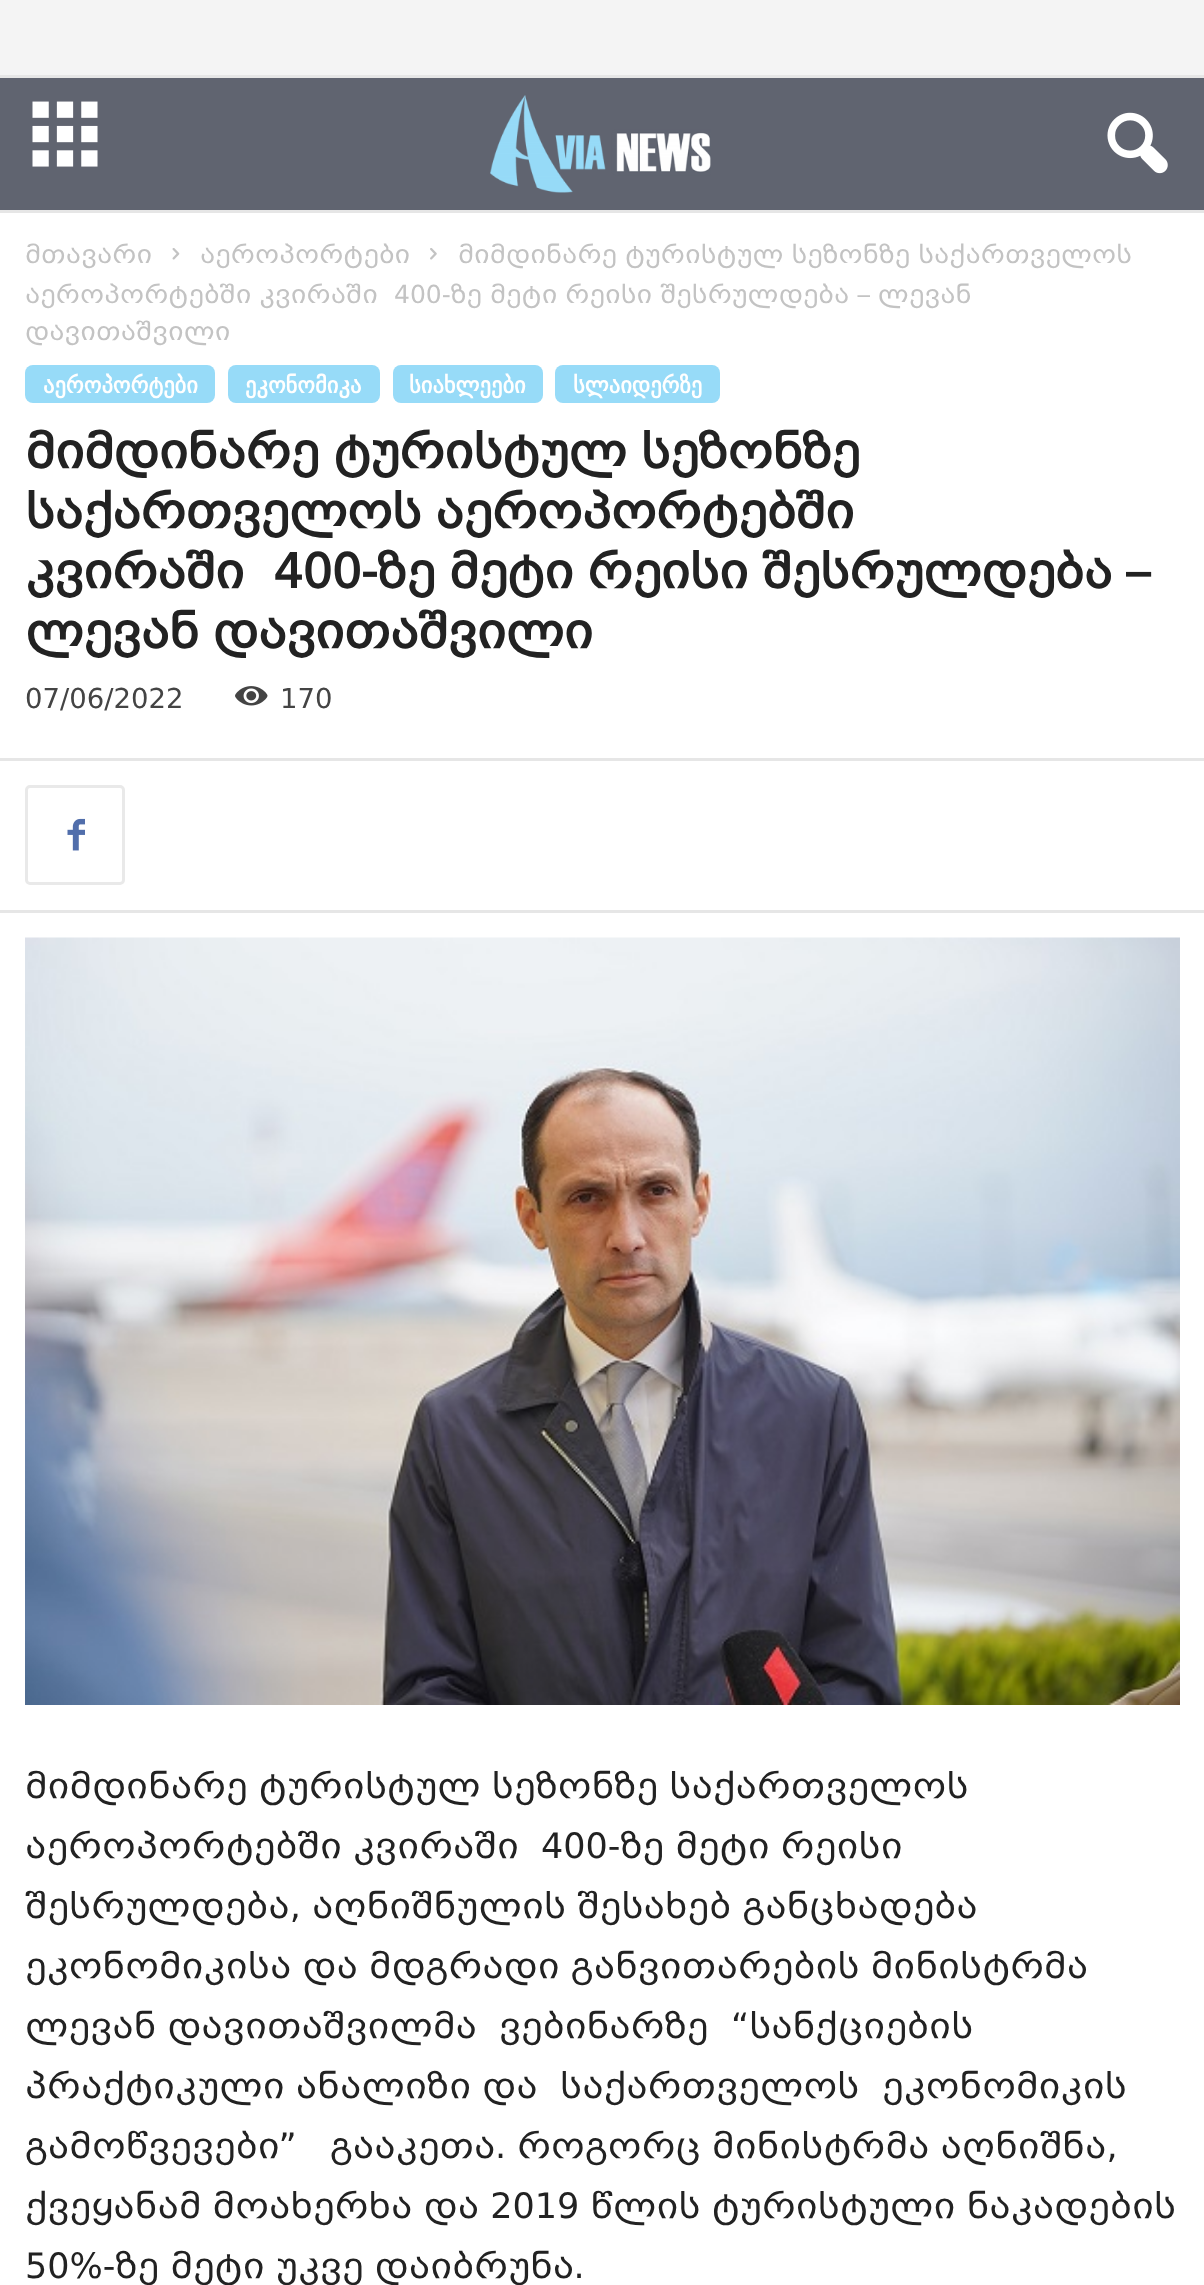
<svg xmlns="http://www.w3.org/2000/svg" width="1204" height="2285">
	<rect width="100%" height="100%" fill="#F4F4F4" />
	<rect x="0" y="78" width="1204" height="132" fill="#606470" />
	<rect x="0" y="75" width="1204" height="3" fill="#E6E6E6" />
	<rect x="0" y="210" width="1204" height="3" fill="#E6E6E6" />
	<image x="32" y="101" width="66" height="66" href="assets/img1.png" />
	<image x="490" y="95" width="221" height="98" href="assets/img2.png" />
	<image x="1107" y="112" width="61" height="62" href="assets/img3.png" />
	<rect x="0" y="213" width="1204" height="2072" fill="#FFFFFF" />
	<text x="25" y="263" font-family="'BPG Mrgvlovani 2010'" font-size="25" fill="#C3C3C3">მთავარი</text>
	<image x="172" y="248" width="8" height="12" href="assets/img4.png" />
	<text x="200" y="263" font-family="'BPG Mrgvlovani 2010'" font-size="25" fill="#C3C3C3">აეროპორტები</text>
	<image x="430" y="248" width="7" height="12" href="assets/img5.png" />
	<g font-family="'BPG Mrgvlovani 2010'" font-size="25" fill="#C3C3C3">
		<text x="458" y="263">მიმდინარე ტურისტულ სეზონზე საქართველოს</text>
		<text x="25" y="303">აეროპორტებში კვირაში</text>
		<text x="394" y="303">400-ზე მეტი რეისი შესრულდება – ლევან</text>
		<text x="25" y="340">დავითაშვილი</text>
	</g>
	<rect x="25" y="365" width="190" height="38" rx="8" fill="#97DBF8" />
	<text x="43" y="393" font-family="DejaVu Sans" font-size="22.5" font-weight="700" fill="#FFFFFF">აეროპორტები</text>
	<rect x="228" y="365" width="152" height="38" rx="8" fill="#97DBF8" />
	<text x="245" y="393" font-family="DejaVu Sans" font-size="22.5" font-weight="700" fill="#FFFFFF">ეკონომიკა</text>
	<rect x="393" y="365" width="150" height="38" rx="8" fill="#97DBF8" />
	<text x="409" y="393" font-family="DejaVu Sans" font-size="22.5" font-weight="700" fill="#FFFFFF">სიახლეები</text>
	<rect x="555" y="365" width="165" height="38" rx="8" fill="#97DBF8" />
	<text x="573" y="393" font-family="DejaVu Sans" font-size="22.5" font-weight="700" fill="#FFFFFF">სლაიდერზე</text>
	<g font-family="'BPG Mrgvlovani 2010'" font-size="47.5" font-weight="700" letter-spacing="-0.95" fill="#222222">
		<text x="25" y="468">მიმდინარე ტურისტულ სეზონზე</text>
		<text x="25" y="528">საქართველოს აეროპორტებში</text>
		<text x="25" y="588">კვირაში</text>
		<text x="273" y="588">400-ზე მეტი რეისი შესრულდება –</text>
		<text x="25" y="648">ლევან დავითაშვილი</text>
	</g>
	<text x="25" y="708" font-family="'BPG Mrgvlovani 2010'" font-size="27.5" fill="#444444">07/06/2022</text>
	<image x="235" y="686" width="33" height="20" href="assets/img6.png" />
	<text x="280" y="708" font-family="'BPG Mrgvlovani 2010'" font-size="27.5" fill="#444444">170</text>
	<rect x="0" y="758" width="1204" height="3" fill="#E6E6E6" />
	<rect x="26.5" y="786.5" width="97" height="97" rx="3.5" fill="none" stroke="#E9E9E9" stroke-width="3" />
	<image x="67" y="818" width="18" height="33" href="assets/img7.png" />
	<rect x="0" y="910" width="1204" height="3" fill="#E6E6E6" />
	<image x="25" y="937" width="1155" height="768" href="assets/img8.png" />
	<g font-family="'BPG Mrgvlovani 2010'" font-size="35" fill="#222222">
		<text x="25" y="1798">მიმდინარე ტურისტულ სეზონზე საქართველოს</text>
		<text x="25" y="1858">აეროპორტებში კვირაში</text>
		<text x="541" y="1858">400-ზე მეტი რეისი</text>
		<text x="25" y="1918">შესრულდება, აღნიშნულის შესახებ განცხადება</text>
		<text x="25" y="1978">ეკონომიკისა და მდგრადი განვითარების მინისტრმა</text>
		<text x="25" y="2038">ლევან დავითაშვილმა</text>
		<text x="499" y="2038">ვებინარზე</text>
		<text x="731" y="2038">“სანქციების</text>
		<text x="25" y="2098">პრაქტიკული ანალიზი და</text>
		<text x="560" y="2098">საქართველოს</text>
		<text x="882" y="2098">ეკონომიკის</text>
		<text x="25" y="2158">გამოწვევები”</text>
		<text x="330" y="2158">გააკეთა. როგორც მინისტრმა აღნიშნა,</text>
		<text x="25" y="2218">ქვეყანამ მოახერხა და 2019 წლის ტურისტული ნაკადების</text>
		<text x="25" y="2278">50%-ზე მეტი უკვე დაიბრუნა.</text>
	</g>
</svg>
